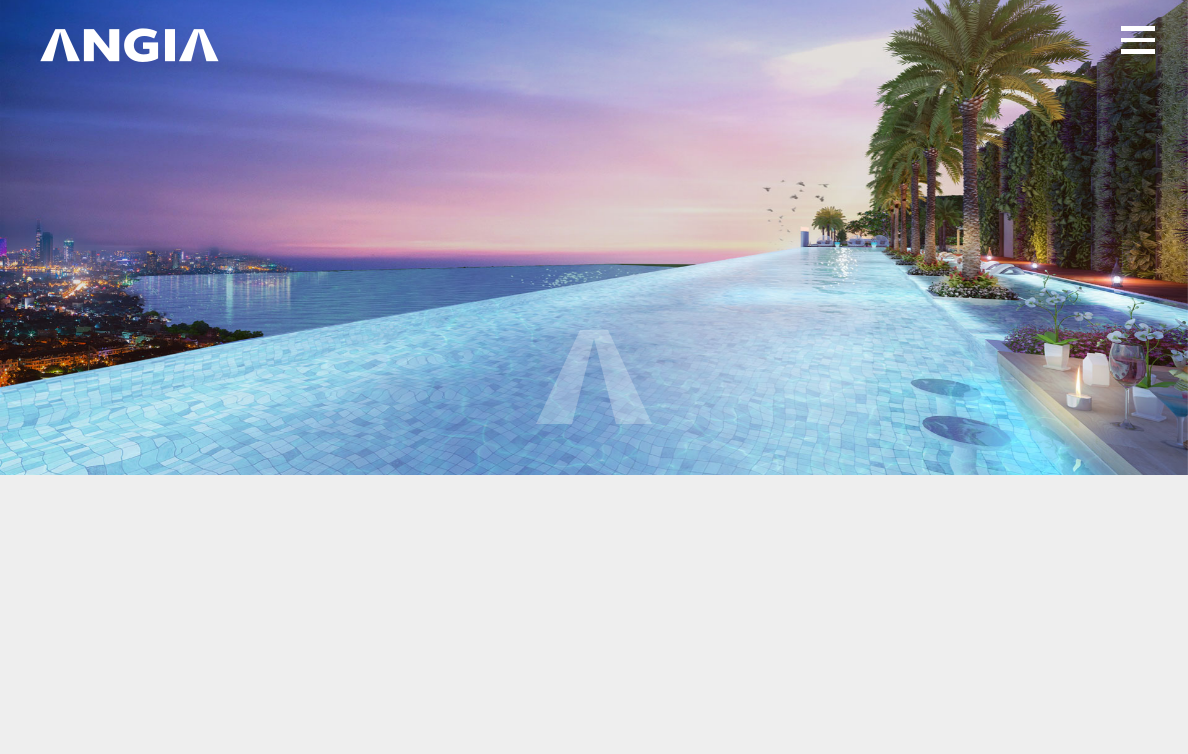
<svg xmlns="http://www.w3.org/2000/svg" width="1188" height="754">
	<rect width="100%" height="100%" fill="#FFFFFF" />
	<image x="0" y="0" width="1188" height="475" href="assets/img1.png" />
	<rect x="0" y="475" width="1188" height="279" fill="#EEEEEE" />
	<image x="40" y="28" width="179" height="34" href="assets/img2.png" />
	<rect x="1121" y="49" width="34" height="5" fill="#FFFFFF" />
	<rect x="1121" y="38" width="34" height="4" fill="#FFFFFF" />
	<rect x="1121" y="26" width="34" height="5" fill="#FFFFFF" />
	<path d="M580 330L536 424H572L594 338L616 424H652L608 330Z" fill="#FFFFFF" fill-opacity="0.26" />
</svg>
